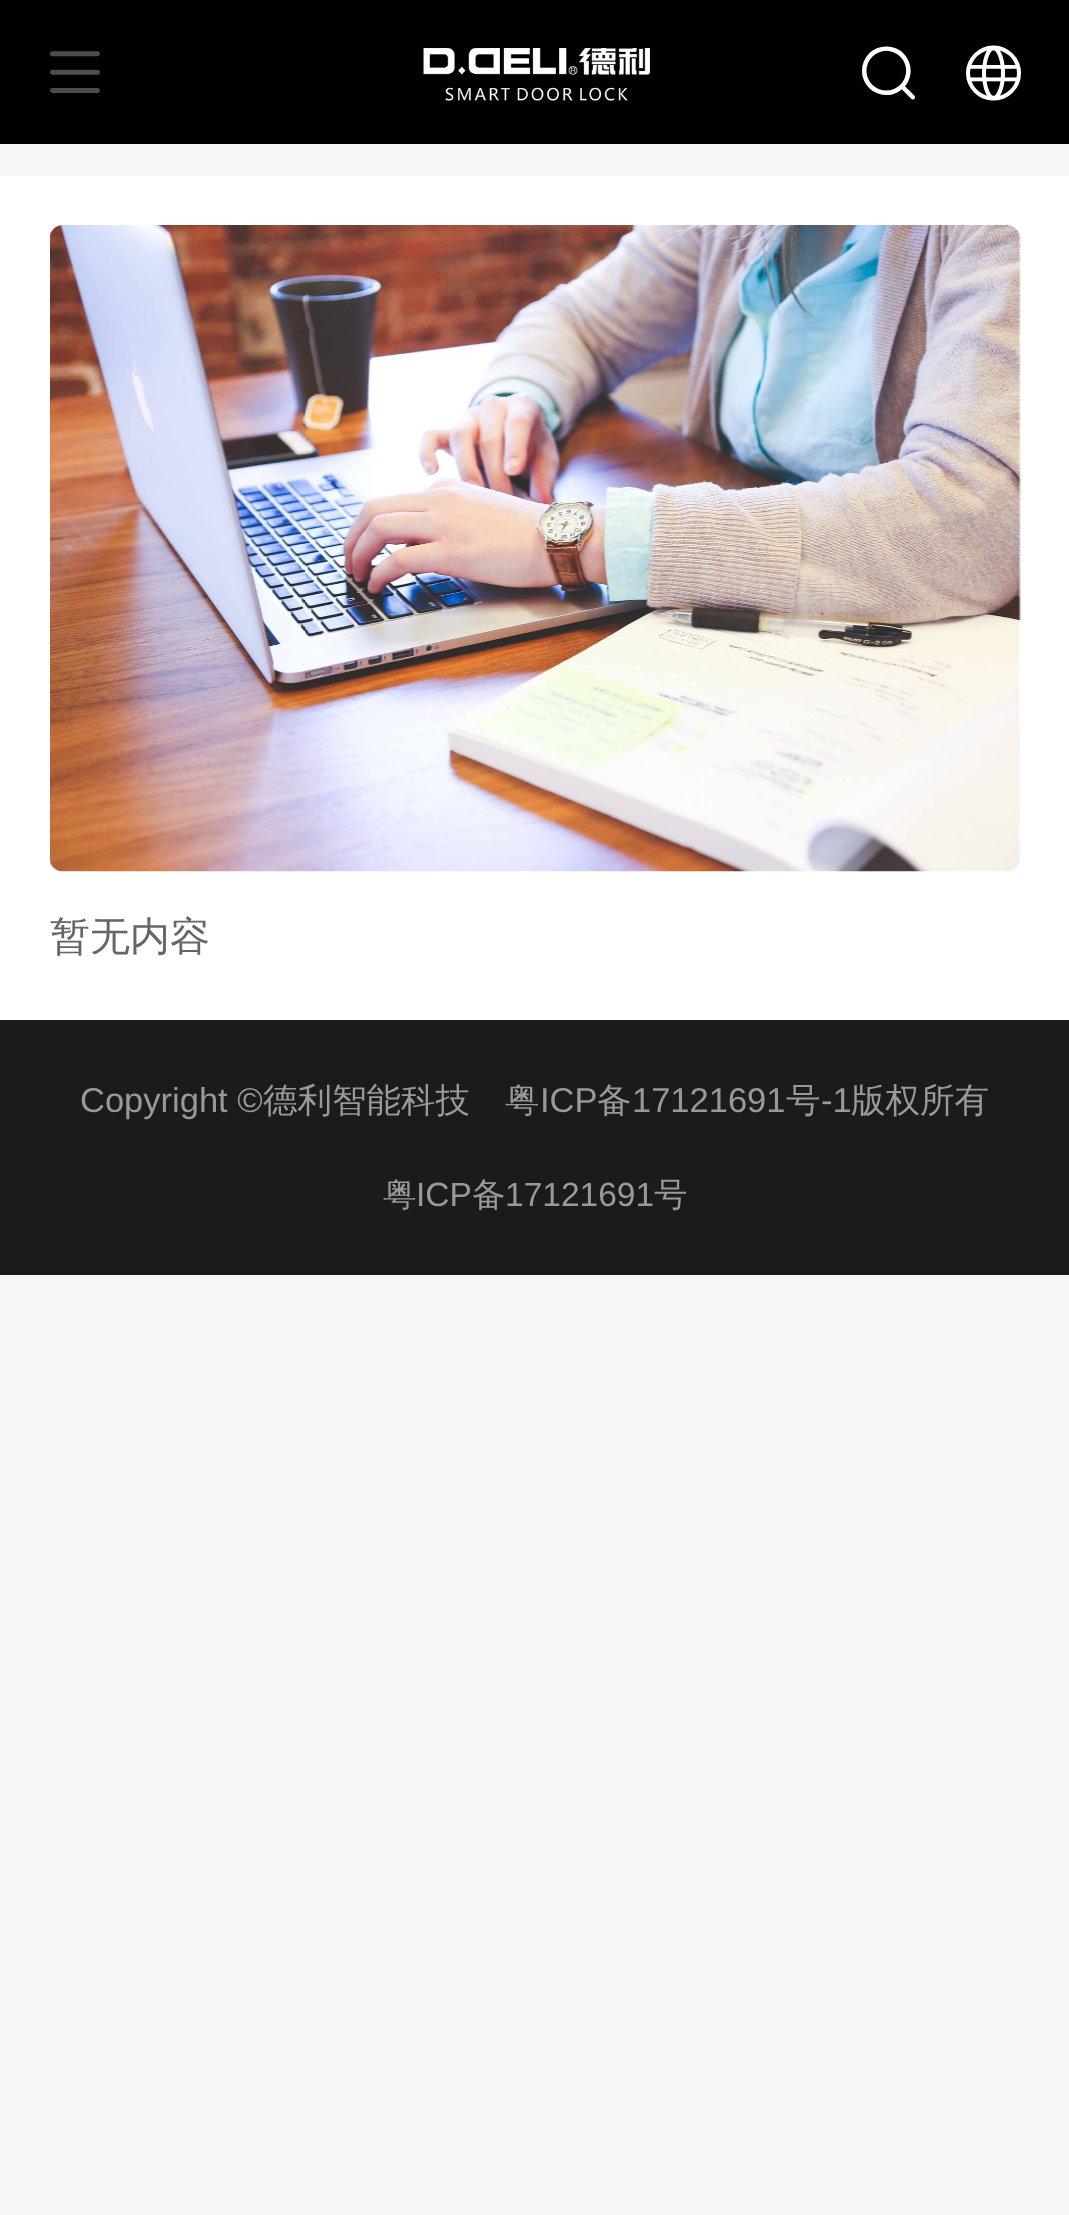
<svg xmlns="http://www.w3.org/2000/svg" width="1069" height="2215">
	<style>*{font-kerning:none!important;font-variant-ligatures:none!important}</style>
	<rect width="100%" height="100%" fill="#F8F8F8" />
	<rect x="0" y="0" width="1069" height="144" fill="#000000" />
	<text x="50" y="93" font-family="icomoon" font-size="50" fill="#4D4D4D">򰌲</text>
	<image x="423" y="48" width="227" height="53" href="assets/img1.png" />
	<text x="862" y="95" font-family="icomoon" font-size="53" fill="#FFFFFF">򰊐</text>
	<text x="966" y="96" font-family="icomoon" font-size="55" fill="#FFFFFF">򰊉</text>
	<rect x="0" y="176" width="1069" height="844" fill="#FFFFFF" />
	<image x="50" y="225" width="971" height="647" href="assets/img2.png" />
	<text x="50" y="950" font-family="WenQuanYi Zen Hei" font-size="40" font-weight="500" fill="#666666">暂无内容</text>
	<rect x="0" y="1020" width="1069" height="255" fill="#1B1B1B" />
	<text x="80" y="1112" font-family="Liberation Sans" font-size="34.5" fill="#999999">Copyright ©</text>
	<g font-family="WenQuanYi Zen Hei" font-size="34.5" font-weight="500" fill="#999999">
		<text x="263" y="1112">德利智能科技</text>
		<text x="505" y="1112">粤</text>
	</g>
	<text x="540" y="1112" font-family="Liberation Sans" font-size="34.5" fill="#999999">ICP</text>
	<text x="597" y="1112" font-family="WenQuanYi Zen Hei" font-size="34.5" font-weight="500" fill="#999999">备</text>
	<text x="632" y="1112" font-family="Liberation Sans" font-size="34.5" fill="#999999">17121691</text>
	<text x="786" y="1112" font-family="WenQuanYi Zen Hei" font-size="34.5" font-weight="500" fill="#999999">号</text>
	<text x="821" y="1112" font-family="Liberation Sans" font-size="34.5" fill="#999999">-1</text>
	<text x="851" y="1112" font-family="WenQuanYi Zen Hei" font-size="34.5" font-weight="500" fill="#999999">版权所有</text>
	<text x="383" y="1206" font-family="WenQuanYi Zen Hei" font-size="33.5" font-weight="500" fill="#999999">粤</text>
	<text x="416" y="1206" font-family="Liberation Sans" font-size="33.5" fill="#999999">ICP</text>
	<text x="472" y="1206" font-family="WenQuanYi Zen Hei" font-size="33.5" font-weight="500" fill="#999999">备</text>
	<text x="505" y="1206" font-family="Liberation Sans" font-size="33.5" fill="#999999">17121691</text>
	<text x="654" y="1206" font-family="WenQuanYi Zen Hei" font-size="33.5" font-weight="500" fill="#999999">号</text>
</svg>
